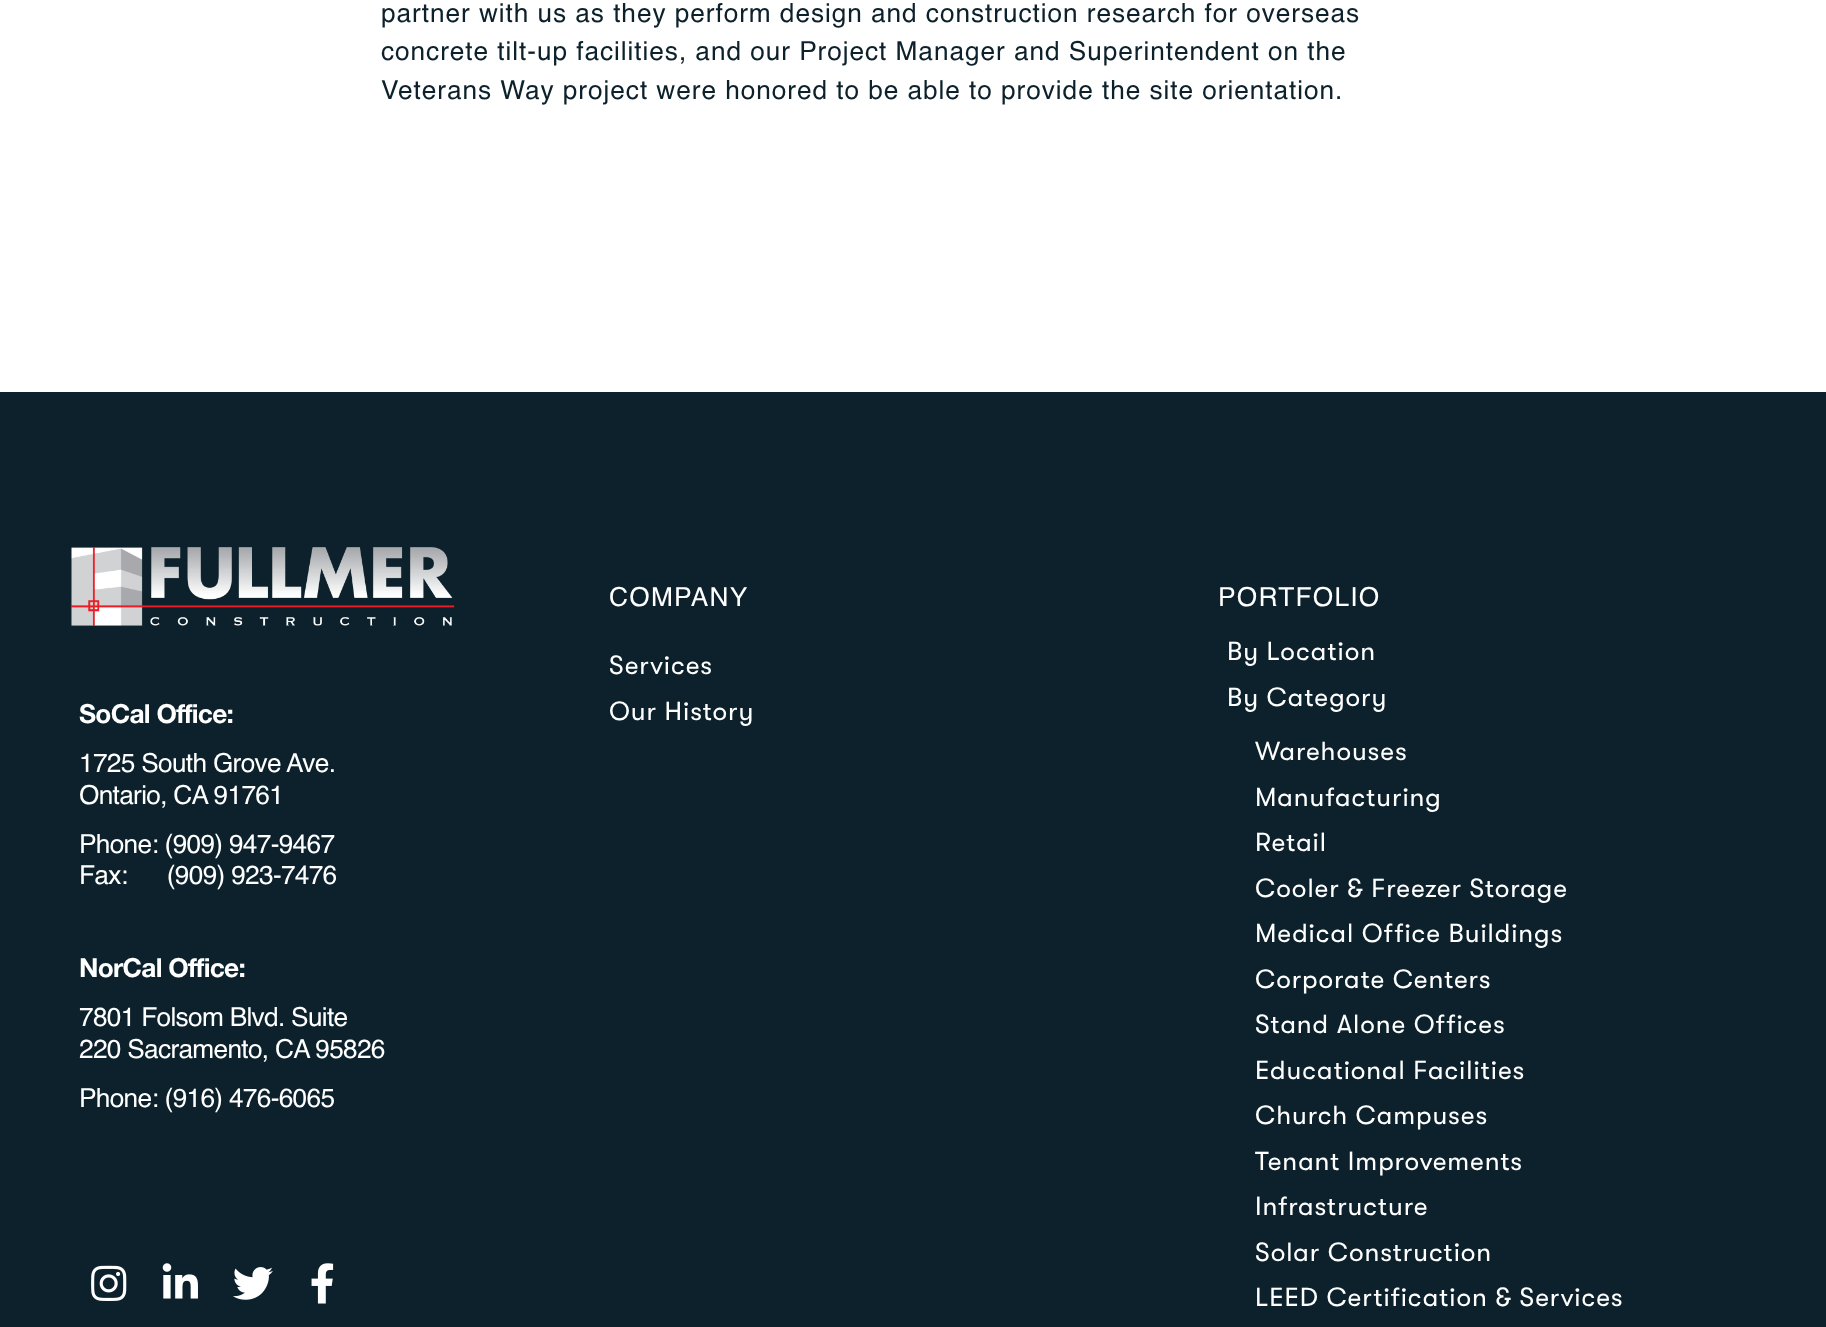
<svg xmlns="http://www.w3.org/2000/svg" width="1826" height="1327">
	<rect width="100%" height="100%" fill="#FFFFFF" />
	<g font-family="Helvetica" font-size="26.25" letter-spacing="0.93" fill="#0C212B">
		<text x="381" y="22">partner with us as they perform design and construction research for overseas</text>
		<text x="381" y="60">concrete tilt-up facilities, and our Project Manager and Superintendent on the</text>
		<text x="381" y="99">Veterans Way project were honored to be able to provide the site orientation.</text>
	</g>
	<rect x="0" y="392" width="1826" height="935" fill="#0C212B" />
	<image x="70" y="547" width="385" height="79" href="assets/img1.png" />
	<text x="79" y="723" font-family="Helvetica Neue" font-size="26.25" font-weight="700" letter-spacing="-0.7" fill="#FFFFFF">SoCal Office:</text>
	<g font-family="Helvetica" font-size="26.25" letter-spacing="-0.7" fill="#FFFFFF">
		<text x="79" y="772">1725 South Grove Ave.</text>
		<text x="79" y="804">Ontario, CA 91761</text>
		<text x="79" y="853">Phone: (909) 947-9467</text>
		<text x="79" y="884" xml:space="preserve">Fax:      (909) 923-7476</text>
	</g>
	<text x="79" y="977" font-family="Helvetica Neue" font-size="26.25" font-weight="700" letter-spacing="-0.7" fill="#FFFFFF">NorCal Office:</text>
	<g font-family="Helvetica" font-size="26.25" letter-spacing="-0.7" fill="#FFFFFF">
		<text x="79" y="1026">7801 Folsom Blvd. Suite</text>
		<text x="79" y="1058">220 Sacramento, CA 95826</text>
		<text x="79" y="1107">Phone: (916) 476-6065</text>
	</g>
	<image x="91" y="1265" width="36" height="36" href="assets/img2.png" />
	<image x="162" y="1263" width="36" height="36" href="assets/img3.png" />
	<image x="233" y="1267" width="40" height="33" href="assets/img4.png" />
	<image x="311" y="1263" width="23" height="41" href="assets/img5.png" />
	<text x="609" y="606" font-family="Helvetica" font-size="26.25" letter-spacing="1.25" fill="#FFFFFF">COMPANY</text>
	<g font-family="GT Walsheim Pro" font-size="26.25" letter-spacing="0.93" fill="#FFFFFF">
		<text x="609" y="674">Services</text>
		<text x="609" y="720">Our History</text>
	</g>
	<text x="1218" y="606" font-family="Helvetica" font-size="26.25" letter-spacing="1.25" fill="#FFFFFF">PORTFOLIO</text>
	<g font-family="GT Walsheim Pro" font-size="26.25" letter-spacing="0.93" fill="#FFFFFF">
		<text x="1227" y="660">By Location</text>
		<text x="1227" y="706">By Category</text>
		<text x="1255" y="760">Warehouses</text>
		<text x="1255" y="806">Manufacturing</text>
		<text x="1255" y="851">Retail</text>
		<text x="1255" y="897">Cooler &amp; Freezer Storage</text>
		<text x="1255" y="942">Medical Office Buildings</text>
		<text x="1255" y="988">Corporate Centers</text>
		<text x="1255" y="1033">Stand Alone Offices</text>
		<text x="1255" y="1079">Educational Facilities</text>
		<text x="1255" y="1124">Church Campuses</text>
		<text x="1255" y="1170">Tenant Improvements</text>
		<text x="1255" y="1215">Infrastructure</text>
		<text x="1255" y="1261">Solar Construction</text>
		<text x="1255" y="1306">LEED Certification &amp; Services</text>
	</g>
</svg>
